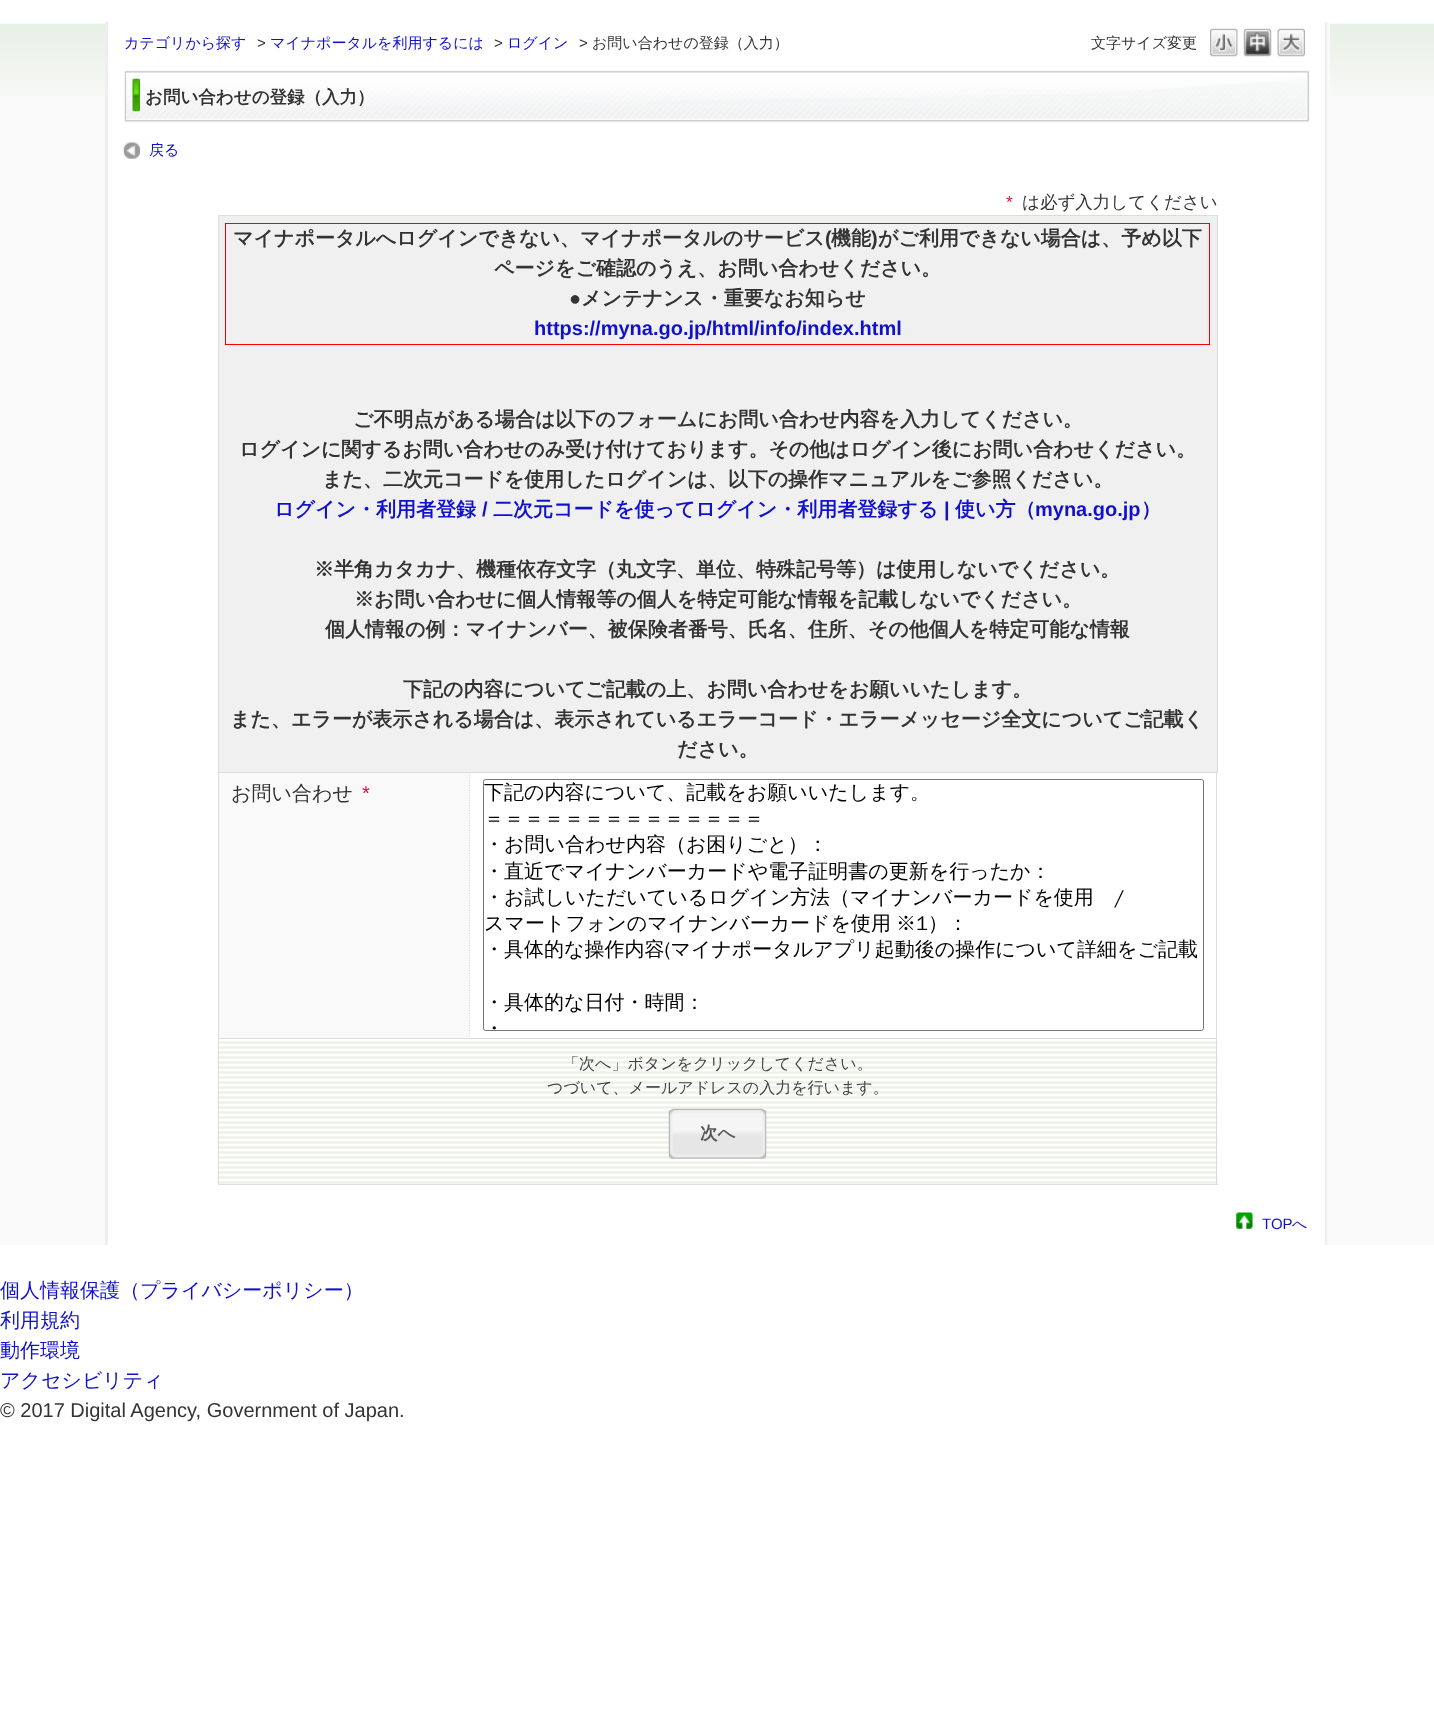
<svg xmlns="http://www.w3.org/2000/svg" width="1434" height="1726">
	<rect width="100%" height="100%" fill="#FFFFFF" />
	<rect x="0" y="96" width="1434" height="1149" fill="#FAFAFA" />
	<image x="0" y="23" width="1434" height="73" href="assets/img1.png" />
	<rect x="108" y="23" width="1217" height="1222" fill="#FFFFFF" />
	<image x="1325" y="22" width="5" height="1223" href="assets/img2.png" />
	<rect x="105" y="22" width="3" height="1223" fill="#EEEEEE" />
	<text x="124" y="48" font-family="WenQuanYi Zen Hei" font-size="15" font-weight="500" fill="#1111CC">カテゴリから探す</text>
	<text x="257" y="48" font-family="Liberation Sans" font-size="15" fill="#333333">&gt;</text>
	<text x="270" y="48" font-family="WenQuanYi Zen Hei" font-size="15" font-weight="500" fill="#1111CC">マイナポータルを利用するには</text>
	<text x="494" y="48" font-family="Liberation Sans" font-size="15" fill="#333333">&gt;</text>
	<text x="507" y="48" font-family="WenQuanYi Zen Hei" font-size="15" font-weight="500" fill="#1111CC">ログイン</text>
	<text x="579" y="48" font-family="Liberation Sans" font-size="15" fill="#333333">&gt;</text>
	<g font-family="WenQuanYi Zen Hei" font-size="15" font-weight="500" fill="#333333">
		<text x="592" y="48">お問い合わせの登録（入力）</text>
		<text x="1091" y="48">文字サイズ変更</text>
	</g>
	<image x="1210" y="28" width="28" height="29" href="assets/img3.png" />
	<image x="1243" y="28" width="29" height="29" href="assets/img4.png" />
	<image x="1277" y="28" width="28" height="29" href="assets/img5.png" />
	<image x="124" y="70" width="3" height="53" href="assets/img6.png" />
	<image x="126" y="70" width="1184" height="53" href="assets/img7.png" />
	<image x="132" y="78" width="8" height="34" href="assets/img8.png" />
	<text x="145" y="103" font-family="WenQuanYi Zen Hei" font-size="17.5" font-weight="700" fill="#333333">お問い合わせの登録（入力）</text>
	<image x="123" y="142" width="17" height="17" href="assets/img9.png" />
	<text x="149" y="155" font-family="WenQuanYi Zen Hei" font-size="15" font-weight="500" fill="#1111CC">戻る</text>
	<text x="1006" y="208" font-family="Liberation Sans" font-size="17.5" fill="#DC143C">*</text>
	<text x="1022" y="208" font-family="WenQuanYi Zen Hei" font-size="17.5" font-weight="500" fill="#333333">は必ず入力してください</text>
	<rect x="218.5" y="215.5" width="999" height="557" fill="#F0F0F0" stroke="#DCDCDC" />
	<rect x="225" y="223" width="985" height="1" fill="#FF0000" />
	<rect x="1209" y="223" width="1" height="122" fill="#FF0000" />
	<rect x="225" y="344" width="985" height="1" fill="#FF0000" />
	<rect x="225" y="223" width="1" height="122" fill="#FF0000" />
	<text x="233" y="245" font-family="WenQuanYi Zen Hei" font-size="20" font-weight="700" fill="#333333">マイナポータルへログインできない、マイナポータルのサービス</text>
	<text x="825" y="245" font-family="Liberation Sans" font-size="20" font-weight="700" fill="#333333">(</text>
	<text x="831" y="245" font-family="WenQuanYi Zen Hei" font-size="20" font-weight="700" fill="#333333">機能</text>
	<text x="871" y="245" font-family="Liberation Sans" font-size="20" font-weight="700" fill="#333333">)</text>
	<g font-family="WenQuanYi Zen Hei" font-size="20" font-weight="700" fill="#333333">
		<text x="878" y="245">がご利用できない場合は、予め以下</text>
		<text x="494" y="275">ページをご確認のうえ、お問い合わせください。</text>
	</g>
	<text x="569" y="305" font-family="Liberation Sans" font-size="20" font-weight="700" fill="#333333">●</text>
	<text x="581" y="305" font-family="WenQuanYi Zen Hei" font-size="20" font-weight="700" fill="#333333">メンテナンス・重要なお知らせ</text>
	<text x="534" y="335" font-family="Liberation Sans" font-size="20" font-weight="700" fill="#1111CC">https://myna.go.jp/html/info/index.html</text>
	<g font-family="WenQuanYi Zen Hei" font-size="20" font-weight="700" fill="#333333">
		<text x="353" y="426">ご不明点がある場合は以下のフォームにお問い合わせ内容を入力してください。</text>
		<text x="239" y="456">ログインに関するお問い合わせのみ受け付けております。その他はログイン後にお問い合わせください。</text>
		<text x="322" y="486">また、二次元コードを使用したログインは、以下の操作マニュアルをご参照ください。</text>
	</g>
	<text x="274" y="516" font-family="WenQuanYi Zen Hei" font-size="20" font-weight="700" fill="#1111CC">ログイン・利用者登録</text>
	<text x="482" y="516" font-family="Liberation Sans" font-size="20" font-weight="700" fill="#1111CC">/</text>
	<text x="493" y="516" font-family="WenQuanYi Zen Hei" font-size="20" font-weight="700" fill="#1111CC">二次元コードを使ってログイン・利用者登録する</text>
	<text x="944" y="516" font-family="Liberation Sans" font-size="20" font-weight="700" fill="#1111CC">|</text>
	<text x="955" y="516" font-family="WenQuanYi Zen Hei" font-size="20" font-weight="700" fill="#1111CC">使い方（</text>
	<text x="1035" y="516" font-family="Liberation Sans" font-size="20" font-weight="700" fill="#1111CC">myna.go.jp</text>
	<text x="1141" y="516" font-family="WenQuanYi Zen Hei" font-size="20" font-weight="700" fill="#1111CC">）</text>
	<g font-family="WenQuanYi Zen Hei" font-size="20" font-weight="700" fill="#333333">
		<text x="314" y="576">※半角カタカナ、機種依存文字（丸文字、単位、特殊記号等）は使用しないでください。</text>
		<text x="354" y="606">※お問い合わせに個人情報等の個人を特定可能な情報を記載しないでください。</text>
		<text x="325" y="636">個人情報の例：マイナンバー、被保険者番号、氏名、住所、その他個人を特定可能な情報</text>
		<text x="403" y="696">下記の内容についてご記載の上、お問い合わせをお願いいたします。</text>
		<text x="230" y="726">また、エラーが表示される場合は、表示されているエラーコード・エラーメッセージ全文についてご記載く</text>
		<text x="677" y="756">ださい。</text>
	</g>
	<rect x="1216" y="773" width="1" height="266" fill="#DCDCDC" />
	<rect x="218" y="773" width="1" height="266" fill="#DCDCDC" />
	<image x="217" y="1038" width="1001" height="146" href="assets/img10.png" />
	<rect x="219" y="1038" width="997" height="1" fill="#DCDCDC" />
	<rect x="219" y="773" width="250" height="265" fill="#F9F9F9" />
	<text x="231" y="800" font-family="WenQuanYi Zen Hei" font-size="20" font-weight="500" fill="#333333">お問い合わせ</text>
	<text x="362" y="800" font-family="Liberation Sans" font-size="20" fill="#DC143C">*</text>
	<path d="M469.5 772.5V1037.5" fill="none" stroke="#DCDCDC" stroke-width="1.2" stroke-dasharray="1.25 1.25" />
	<rect x="483.5" y="779.5" width="720" height="251" rx="2" fill="none" stroke="#767676" />
	<g font-family="WenQuanYi Zen Hei" font-size="20" font-weight="500" fill="#000000">
		<text x="484" y="799">下記の内容について、記載をお願いいたします。</text>
		<text x="484" y="825">＝＝＝＝＝＝＝＝＝＝＝＝＝＝</text>
		<text x="484" y="851">・お問い合わせ内容（お困りごと）：</text>
		<text x="484" y="878">・直近でマイナンバーカードや電子証明書の更新を行ったか：</text>
		<text x="484" y="904">・お試しいただいているログイン方法（マイナンバーカードを使用　/</text>
		<text x="484" y="930" word-spacing="-1">スマートフォンのマイナンバーカードを使用 ※1）：</text>
		<text x="484" y="956">・具体的な操作内容(マイナポータルアプリ起動後の操作について詳細をご記載</text>
		<text x="484" y="1009">・具体的な日付・時間：</text>
		<text x="484" y="1035">・</text>
	</g>
	<rect x="1216" y="1039" width="1" height="146" fill="#DCDCDC" />
	<rect x="218" y="1184" width="1000" height="1" fill="#DCDCDC" />
	<rect x="218" y="1039" width="1" height="146" fill="#DCDCDC" />
	<g font-family="WenQuanYi Zen Hei" font-size="16" font-weight="500" fill="#444444">
		<text x="563" y="1069">「次へ」ボタンをクリックしてください。</text>
		<text x="547" y="1093">つづいて、メールアドレスの入力を行います。</text>
	</g>
	<image x="668" y="1108" width="7" height="51" href="assets/img11.png" />
	<image x="675" y="1108" width="85" height="51" href="assets/img12.png" />
	<text x="700" y="1139" font-family="WenQuanYi Zen Hei" font-size="17.5" font-weight="700" fill="#555555">次へ</text>
	<image x="760" y="1108" width="7" height="51" href="assets/img13.png" />
	<image x="1236" y="1212" width="17" height="17" href="assets/img14.png" />
	<text x="1262" y="1229" font-family="Liberation Sans" font-size="15" fill="#1111CC">TOP</text>
	<text x="1292" y="1229" font-family="WenQuanYi Zen Hei" font-size="15" font-weight="500" fill="#1111CC">へ</text>
	<g font-family="WenQuanYi Zen Hei" font-size="20" font-weight="500" fill="#1111CC">
		<text x="0" y="1297">個人情報保護（プライバシーポリシー）</text>
		<text x="0" y="1327">利用規約</text>
		<text x="0" y="1357">動作環境</text>
		<text x="0" y="1387">アクセシビリティ</text>
	</g>
	<text x="0" y="1417" font-family="Liberation Sans" font-size="20" fill="#333333">© 2017 Digital Agency, Government of Japan.</text>
</svg>
